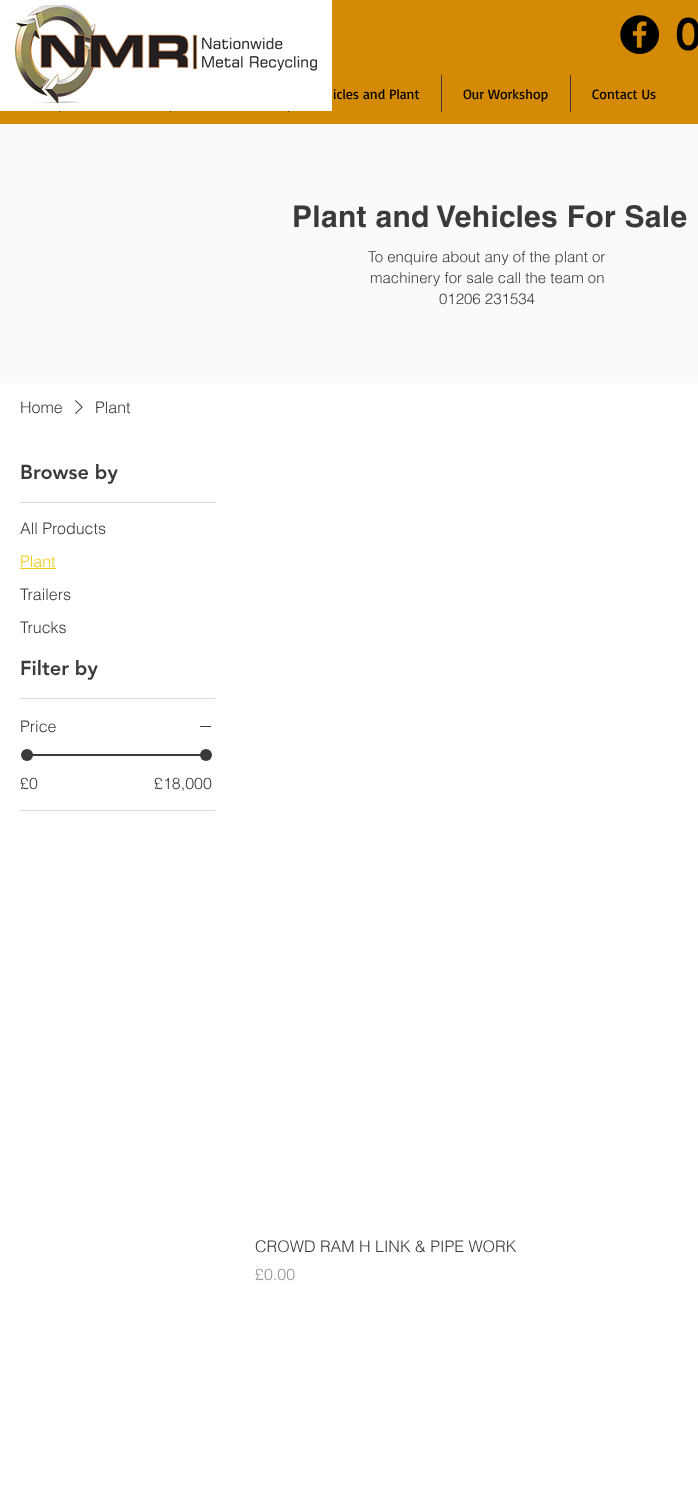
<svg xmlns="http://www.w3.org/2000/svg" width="698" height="1499">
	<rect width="100%" height="100%" fill="#FFFFFF" />
	<rect x="0" y="0" width="698" height="124" fill="#D48A04" />
	<rect x="0" y="0" width="332" height="111" fill="#FFFFFF" />
	<image x="15" y="5" width="302" height="98" href="assets/img1.png" />
	<image x="620" y="15" width="39" height="39" href="assets/img2.png" />
	<text x="675" y="50" font-family="'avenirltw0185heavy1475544'" font-size="45" font-weight="900" fill="#000000">0</text>
	<rect x="288" y="111" width="1" height="1" fill="#3B3A3A" />
	<text x="333" y="99" font-family="Basic" font-size="14" fill="#000000">icles and Plant</text>
	<rect x="441" y="75" width="1" height="37" fill="#3B3A3A" />
	<text x="463" y="99" font-family="Basic" font-size="14" fill="#000000">Our Workshop</text>
	<rect x="570" y="75" width="1" height="37" fill="#3B3A3A" />
	<text x="592" y="99" font-family="Basic" font-size="14" fill="#000000">Contact Us</text>
	<rect x="59" y="111" width="1" height="1" fill="#3B3A3A" />
	<rect x="170" y="111" width="1" height="1" fill="#3B3A3A" />
	<rect x="0" y="124" width="698" height="259" fill="#FAFAFA" />
	<text x="292" y="227" font-family="helvetica" font-size="30" font-weight="700" letter-spacing="0.3" fill="#3B3A3A">Plant and Vehicles For Sale</text>
	<g font-family="helvetica" font-size="15" font-weight="300" fill="#3B3A3A">
		<text x="368" y="262">To enquire about any of the plant or</text>
		<text x="370" y="283">machinery for sale call the team on</text>
		<text x="439" y="304">01206 231534</text>
	</g>
	<text x="20" y="413" font-family="helvetica" font-size="16" font-weight="300" fill="#3B3A3A">Home</text>
	<image x="75" y="400" width="8" height="14" href="assets/img3.png" />
	<text x="95" y="413" font-family="helvetica" font-size="16" font-weight="300" fill="#3B3A3A">Plant</text>
	<rect x="20" y="502" width="195" height="1" fill="#D8D8D8" />
	<text x="20" y="479" font-family="'avenirltw0185heavy1475544'" font-size="20" font-weight="900" fill="#3B3A3A">Browse by</text>
	<text x="20" y="534" font-family="helvetica" font-size="16" font-weight="300" fill="#3B3A3A">All Products</text>
	<text x="20" y="567" font-family="helvetica" font-size="16" font-weight="300" fill="#EDCD1F">Plant</text>
	<rect x="20" y="568" width="36" height="1" fill="#EDCD1F" />
	<g font-family="helvetica" font-size="16" font-weight="300" fill="#3B3A3A">
		<text x="20" y="600">Trailers</text>
		<text x="20" y="633">Trucks</text>
	</g>
	<rect x="20" y="698" width="195" height="1" fill="#D8D8D8" />
	<text x="20" y="675" font-family="'avenirltw0185heavy1475544'" font-size="20" font-weight="900" fill="#3B3A3A">Filter by</text>
	<rect x="20" y="810" width="195" height="1" fill="#D8D8D8" />
	<text x="20" y="732" font-family="helvetica" font-size="16" font-weight="300" fill="#3B3A3A">Price</text>
	<rect x="200" y="726" width="11" height="1" fill="#3B3A3A" />
	<rect x="26" y="754" width="179" height="2" fill="#3B3A3A" />
	<circle cx="27" cy="755" r="6" fill="#3B3A3A" />
	<circle cx="206" cy="755" r="6" fill="#3B3A3A" />
	<g font-family="helvetica" font-size="16" font-weight="300" fill="#3B3A3A">
		<text x="20" y="789">£0</text>
		<text x="154" y="789">£18,000</text>
		<text x="255" y="1252">CROWD RAM H LINK &amp; PIPE WORK</text>
	</g>
	<text x="255" y="1280" font-family="helvetica" font-size="16" font-weight="300" fill="#949494">£0.00</text>
</svg>
